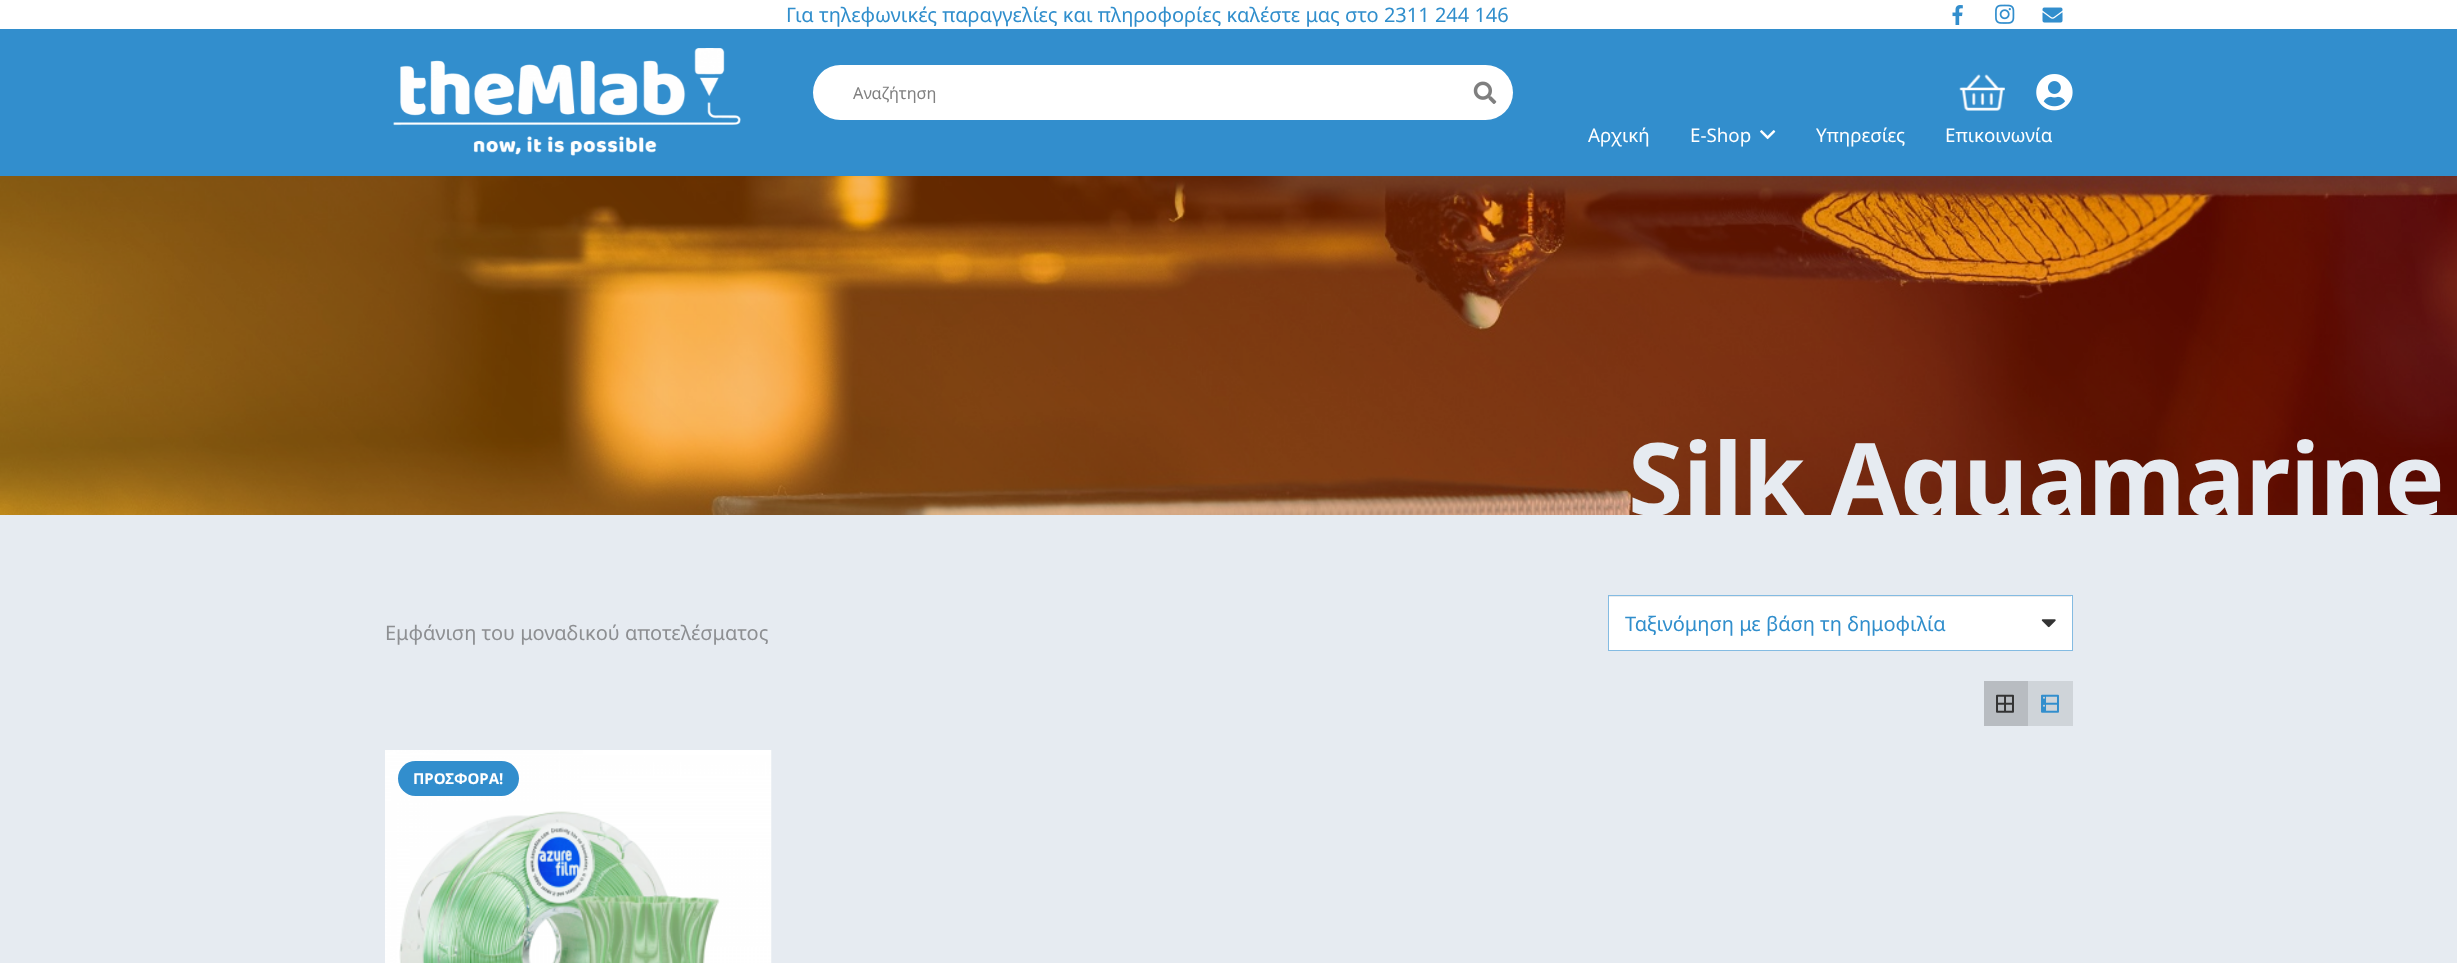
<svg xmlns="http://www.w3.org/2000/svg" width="2457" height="963">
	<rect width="100%" height="100%" fill="#E6EBF1" />
	<rect x="0" y="0" width="2457" height="29" fill="#FFFFFF" />
	<text x="786" y="22" font-family="Noto Sans" font-size="20" fill="#308ECC">Για τηλεφωνικές παραγγελίες και πληροφορίες καλέστε μας στο 2311 244 146</text>
	<image x="1952" y="5" width="11" height="20" href="assets/img1.png" />
	<image x="1995" y="4" width="20" height="20" href="assets/img2.png" />
	<image x="2042" y="7" width="21" height="16" href="assets/img3.png" />
	<rect x="0" y="29" width="2457" height="147" fill="#328ECD" />
	<rect x="813" y="65" width="700" height="55" rx="27.5" fill="#FFFFFF" />
	<text x="853" y="99" font-family="Noto Sans" font-size="16.25" fill="#808080">Αναζήτηση</text>
	<image x="1473" y="81" width="24" height="23" href="assets/img4.png" />
	<image x="1959" y="74" width="46" height="37" href="assets/img5.png" />
	<image x="2036" y="74" width="37" height="37" href="assets/img6.png" />
	<image x="393" y="48" width="348" height="108" href="assets/img7.png" />
	<g font-family="Noto Sans" font-size="18.75" fill="#FFFFFF">
		<text x="1588" y="142">Αρχική</text>
		<text x="1690" y="142">E-Shop</text>
	</g>
	<image x="1760" y="130" width="16" height="10" href="assets/img8.png" />
	<g font-family="Noto Sans" font-size="18.75" fill="#FFFFFF">
		<text x="1816" y="142">Υπηρεσίες</text>
		<text x="1945" y="142">Επικοινωνία</text>
	</g>
	<image x="0" y="176" width="2457" height="339" href="assets/img9.png" />
	<text x="1628" y="515" font-family="Noto Sans" font-size="100" font-weight="700" fill="#E6EBF1">Silk Aquamarine</text>
	<text x="385" y="640" font-family="Noto Sans" font-size="20" fill="#8D8F92">Εμφάνιση του μοναδικού αποτελέσματος</text>
	<rect x="1609" y="596" width="463" height="54" fill="#FFFFFF" />
	<rect x="1609" y="596" width="462" height="1" fill="#EBEBEB" />
	<rect x="1608.5" y="595.5" width="464" height="55" fill="none" stroke="#84BBE2" />
	<text x="1625" y="631" font-family="Noto Sans" font-size="20" fill="#308ECC">Ταξινόμηση με βάση τη δημοφιλία</text>
	<image x="2041" y="619" width="15" height="9" href="assets/img10.png" />
	<rect x="1984" y="681" width="44" height="45" fill="#B8BCC1" />
	<image x="1996" y="694" width="18" height="19" href="assets/img11.png" />
	<rect x="2028" y="681" width="45" height="45" fill="#CFD4D9" />
	<image x="2041" y="694" width="18" height="19" href="assets/img12.png" />
	<image x="385" y="750" width="387" height="213" href="assets/img13.png" />
	<rect x="398" y="761" width="121" height="35" rx="17.5" fill="#328ECD" />
	<text x="413" y="784" font-family="Noto Sans" font-size="15" font-weight="700" fill="#FFFFFF">ΠΡΟΣΦΟΡΑ!</text>
</svg>
